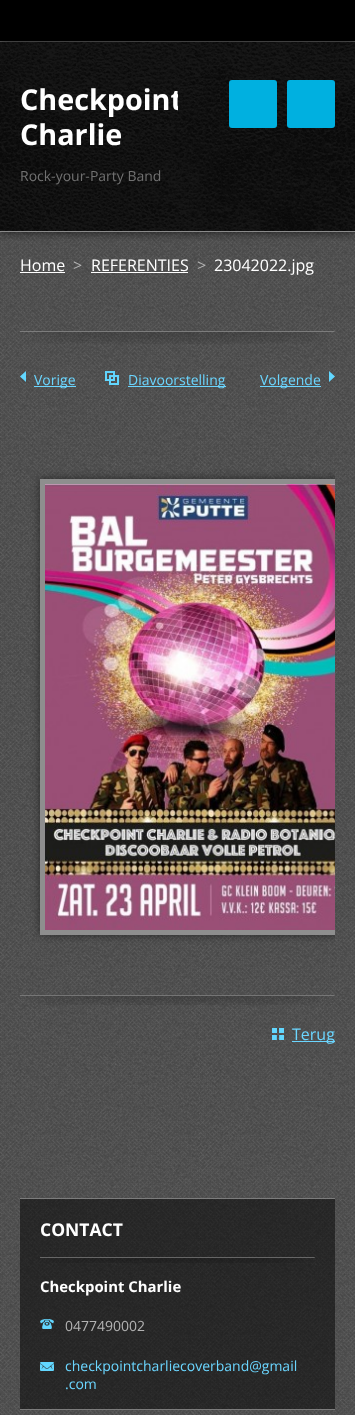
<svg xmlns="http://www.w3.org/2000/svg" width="355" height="1415">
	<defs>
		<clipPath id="clip1"><rect x="20" y="82" width="158" height="69" /></clipPath>
		<clipPath id="clip2"><rect x="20" y="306" width="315" height="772" /></clipPath>
		<clipPath id="clip3"><rect x="20" y="306" width="315" height="772" /></clipPath>
	</defs>
	<rect width="100%" height="100%" fill="#FFFFFF" />
	<image x="0" y="232" width="355" height="1183" href="assets/img1.png" />
	<rect x="0" y="0" width="355" height="41" fill="#000000" />
	<rect x="0" y="41" width="355" height="1" fill="#5E5E5E" />
	<rect x="0" y="42" width="355" height="190" fill="#000000" fill-opacity="0.7" filter="blur(5px)" />
	<image x="0" y="42" width="355" height="189" href="assets/img2.png" />
	<rect x="0" y="231" width="355" height="1" fill="#8A8A8A" />
	<g clip-path="url(#clip1)">
		<text x="20" y="110" font-family="Open Sans" font-size="28.75" font-weight="700" fill="#FFFFFF">Checkpoint</text>
	</g>
	<text x="20" y="145" font-family="Open Sans" font-size="28.75" font-weight="700" fill="#FFFFFF">Charlie</text>
	<text x="20" y="181" font-family="Open Sans" font-size="14" fill="#717171">Rock-your-Party Band</text>
	<rect x="229" y="80" width="48" height="48" rx="3" fill="#00B0E0" />
	<rect x="287" y="80" width="48" height="48" rx="3" fill="#00B0E0" />
	<text x="20" y="271" font-family="Open Sans" font-size="16" fill="#FFFFFF">Home</text>
	<rect x="20" y="272" width="45" height="1" fill="#FFFFFF" />
	<text x="73" y="271" font-family="Open Sans" font-size="16" fill="#B3B3B3">&gt;</text>
	<text x="91" y="271" font-family="Open Sans" font-size="16" fill="#FFFFFF">REFERENTIES</text>
	<rect x="91" y="272" width="97" height="1" fill="#FFFFFF" />
	<text x="197" y="271" font-family="Open Sans" font-size="16" fill="#B3B3B3">&gt;</text>
	<text x="214" y="271" font-family="Open Sans" font-size="16" fill="#FFFFFF">23042022.jpg</text>
	<image x="20" y="331" width="315" height="13" href="assets/img3.png" />
	<image x="20" y="371" width="6" height="11" href="assets/img4.png" />
	<rect x="34" y="386" width="42" height="1" fill="#6BD6FF" />
	<text x="34" y="385" font-family="Open Sans" font-size="14" fill="#6BD6FF">Vorige</text>
	<image x="105" y="371" width="14" height="14" href="assets/img5.png" />
	<rect x="128" y="386" width="98" height="1" fill="#6BD6FF" />
	<text x="128" y="385" font-family="Open Sans" font-size="14" fill="#6BD6FF">Diavoorstelling</text>
	<image x="329" y="371" width="6" height="11" href="assets/img6.png" />
	<rect x="260" y="386" width="61" height="1" fill="#6BD6FF" />
	<text x="260" y="385" font-family="Open Sans" font-size="14" fill="#6BD6FF">Volgende</text>
	<image x="20" y="995" width="315" height="10" href="assets/img7.png" />
	<g clip-path="url(#clip2)">
		<rect x="40" y="479" width="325" height="456" fill="#000000" fill-opacity="0.5" filter="blur(4px)" />
	</g>
	<g clip-path="url(#clip3)">
		<rect x="42.5" y="481.5" width="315" height="451" fill="none" stroke="#8E8E8E" stroke-width="5" />
	</g>
	<image x="45" y="484" width="290" height="446" href="assets/img8.png" />
	<image x="272" y="1028" width="12" height="12" href="assets/img9.png" />
	<rect x="292" y="1041" width="43" height="1" fill="#6BD6FF" />
	<text x="292" y="1040" font-family="Open Sans" font-size="16" fill="#6BD6FF">Terug</text>
	<rect x="20" y="1199" width="315" height="210" fill="#000000" fill-opacity="0.5" />
	<rect x="20" y="1198" width="315" height="1" fill="#7C7C7C" />
	<rect x="20" y="1409" width="315" height="1" fill="#7C7C7C" />
	<image x="40" y="1257" width="275" height="6" href="assets/img10.png" />
	<text x="40" y="1236" font-family="Open Sans" font-size="17.5" font-weight="700" fill="#FFFFFF">CONTACT</text>
	<text x="40" y="1292" font-family="Open Sans" font-size="14.9" font-weight="700" fill="#FFFFFF">Checkpoint Charlie</text>
	<image x="40" y="1319" width="14" height="10" href="assets/img11.png" />
	<text x="65" y="1331" font-family="Open Sans" font-size="14" fill="#B3B3B3">0477490002</text>
	<image x="40" y="1362" width="14" height="9" href="assets/img12.png" />
	<g font-family="Open Sans" font-size="14" fill="#6BD6FF">
		<text x="65" y="1371">checkpointcharliecoverband@gmail</text>
		<text x="65" y="1389">.com</text>
	</g>
</svg>
